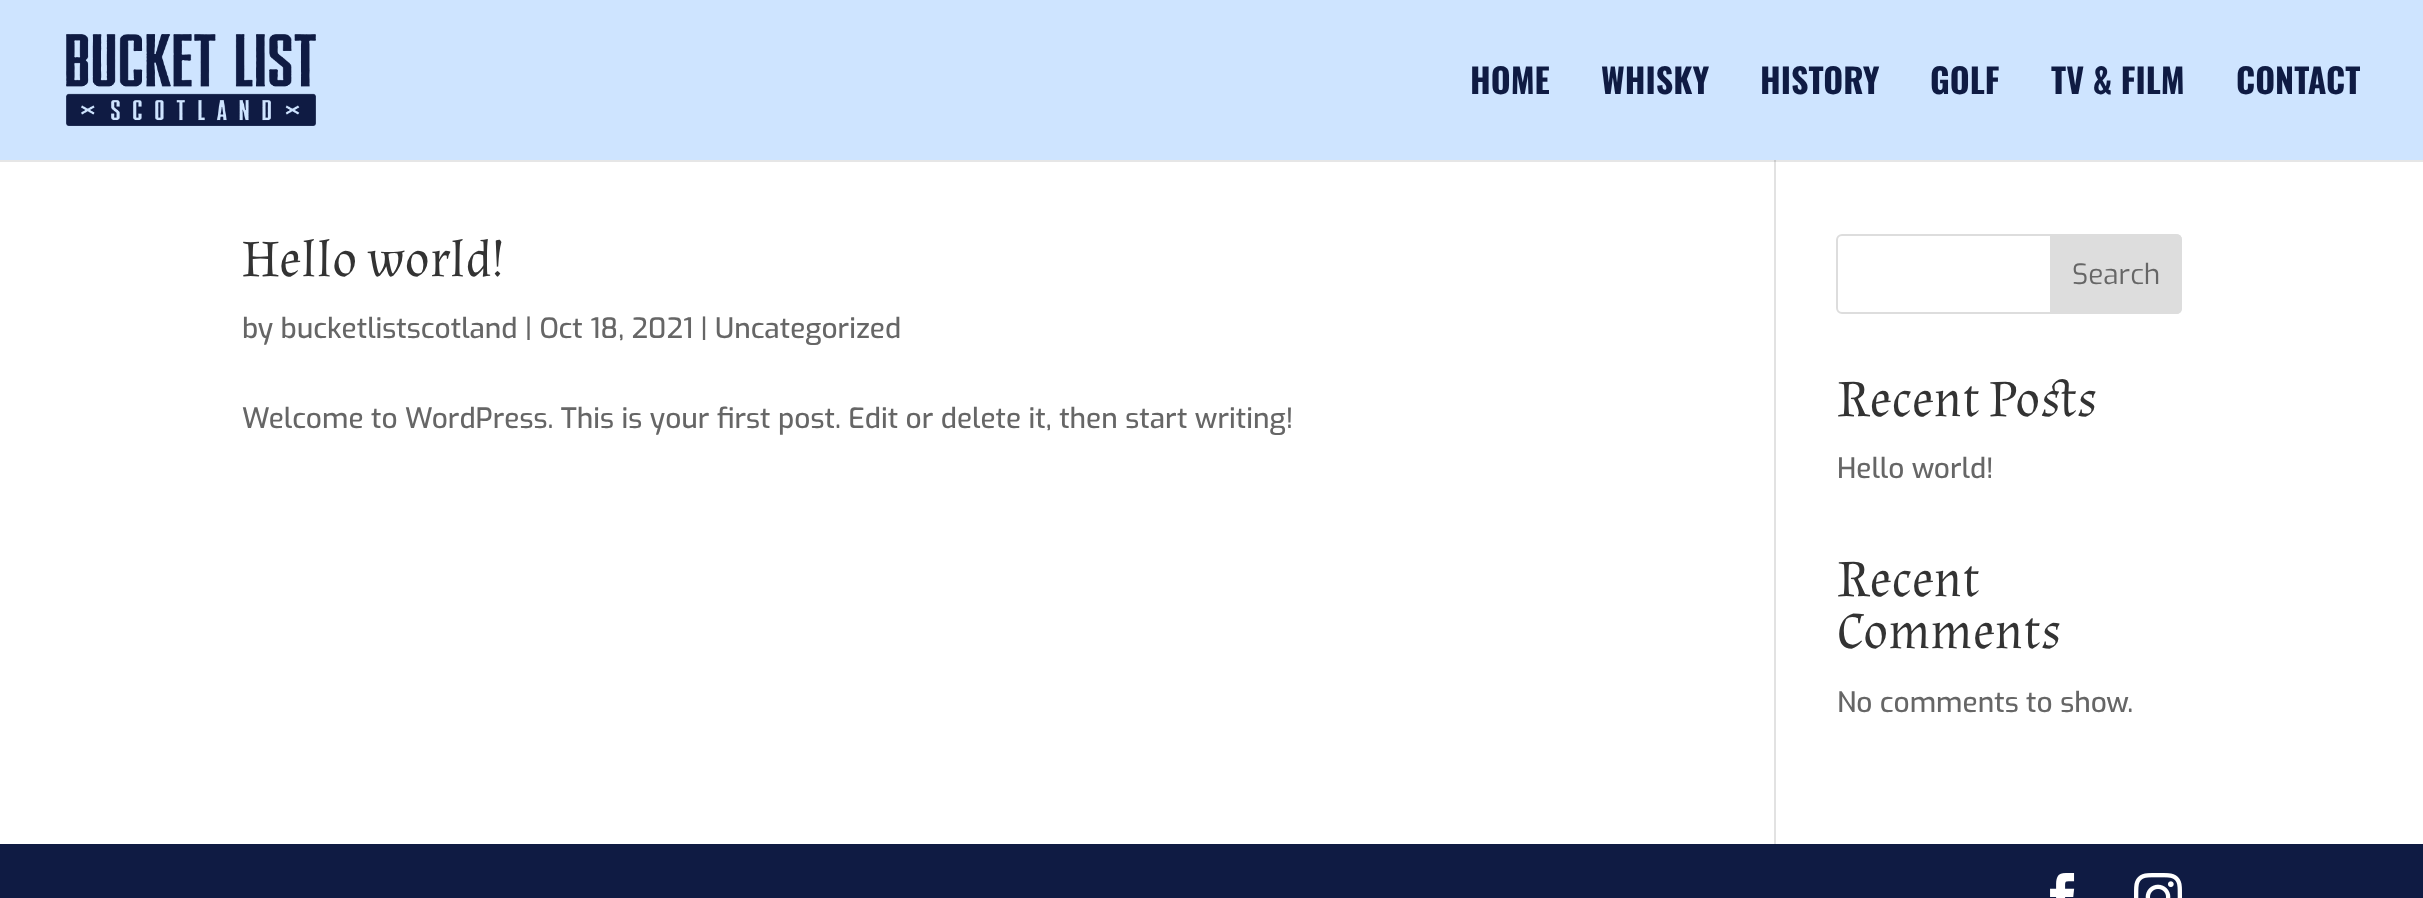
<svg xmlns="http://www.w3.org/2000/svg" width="2423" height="898">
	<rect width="100%" height="100%" fill="#FFFFFF" />
	<rect x="0" y="160" width="2423" height="2" fill="#E6E6E6" />
	<rect x="0" y="0" width="2423" height="160" fill="#CEE4FF" />
	<image x="66" y="34" width="250" height="92" href="assets/img1.png" />
	<g font-family="Oswald" font-size="34" font-weight="700" fill="#0F1B43">
		<text x="1470" y="94">HOME</text>
		<text x="1601" y="94">WHISKY</text>
		<text x="1760" y="94">HISTORY</text>
		<text x="1930" y="94">GOLF</text>
		<text x="2051" y="94">TV &amp; FILM</text>
		<text x="2236" y="94">CONTACT</text>
	</g>
	<rect x="1774" y="162" width="2" height="682" fill="#E2E2E2" />
	<rect x="1774" y="160" width="2" height="2" fill="#CBCBCB" />
	<text x="242" y="276" font-family="Almendra" font-size="52" fill="#333333">Hello world!</text>
	<g font-family="Exo" font-size="28" font-weight="500" fill="#666666">
		<text x="242" y="338">by bucketlistscotland | Oct 18, 2021 | Uncategorized</text>
		<text x="242" y="428">Welcome to WordPress. This is your first post. Edit or delete it, then start writing!</text>
	</g>
	<rect x="1837" y="235" width="344" height="78" rx="5" fill="none" stroke="#DDDDDD" stroke-width="2" />
	<path d="M2051 235H2176C2179 235 2181 237 2181 240V308C2181 311 2179 313 2176 313H2051Z" fill="#DDDDDD" stroke="#DDDDDD" stroke-width="2" />
	<text x="2072" y="284" font-family="Exo" font-size="28" fill="#666666">Search</text>
	<text x="1837" y="416" font-family="Almendra" font-size="52" fill="#333333">Recent Posts</text>
	<text x="1837" y="478" font-family="Exo" font-size="28" font-weight="500" fill="#666666">Hello world!</text>
	<g font-family="Almendra" font-size="52" fill="#333333">
		<text x="1837" y="596">Recent</text>
		<text x="1837" y="648">Comments</text>
	</g>
	<text x="1837" y="712" font-family="Exo" font-size="28" font-weight="500" fill="#666666">No comments to show.</text>
	<rect x="0" y="844" width="2423" height="54" fill="#0F1B43" />
	<image x="2050" y="873" width="25" height="25" href="assets/img2.png" />
	<image x="2134" y="873" width="48" height="25" href="assets/img3.png" />
</svg>
